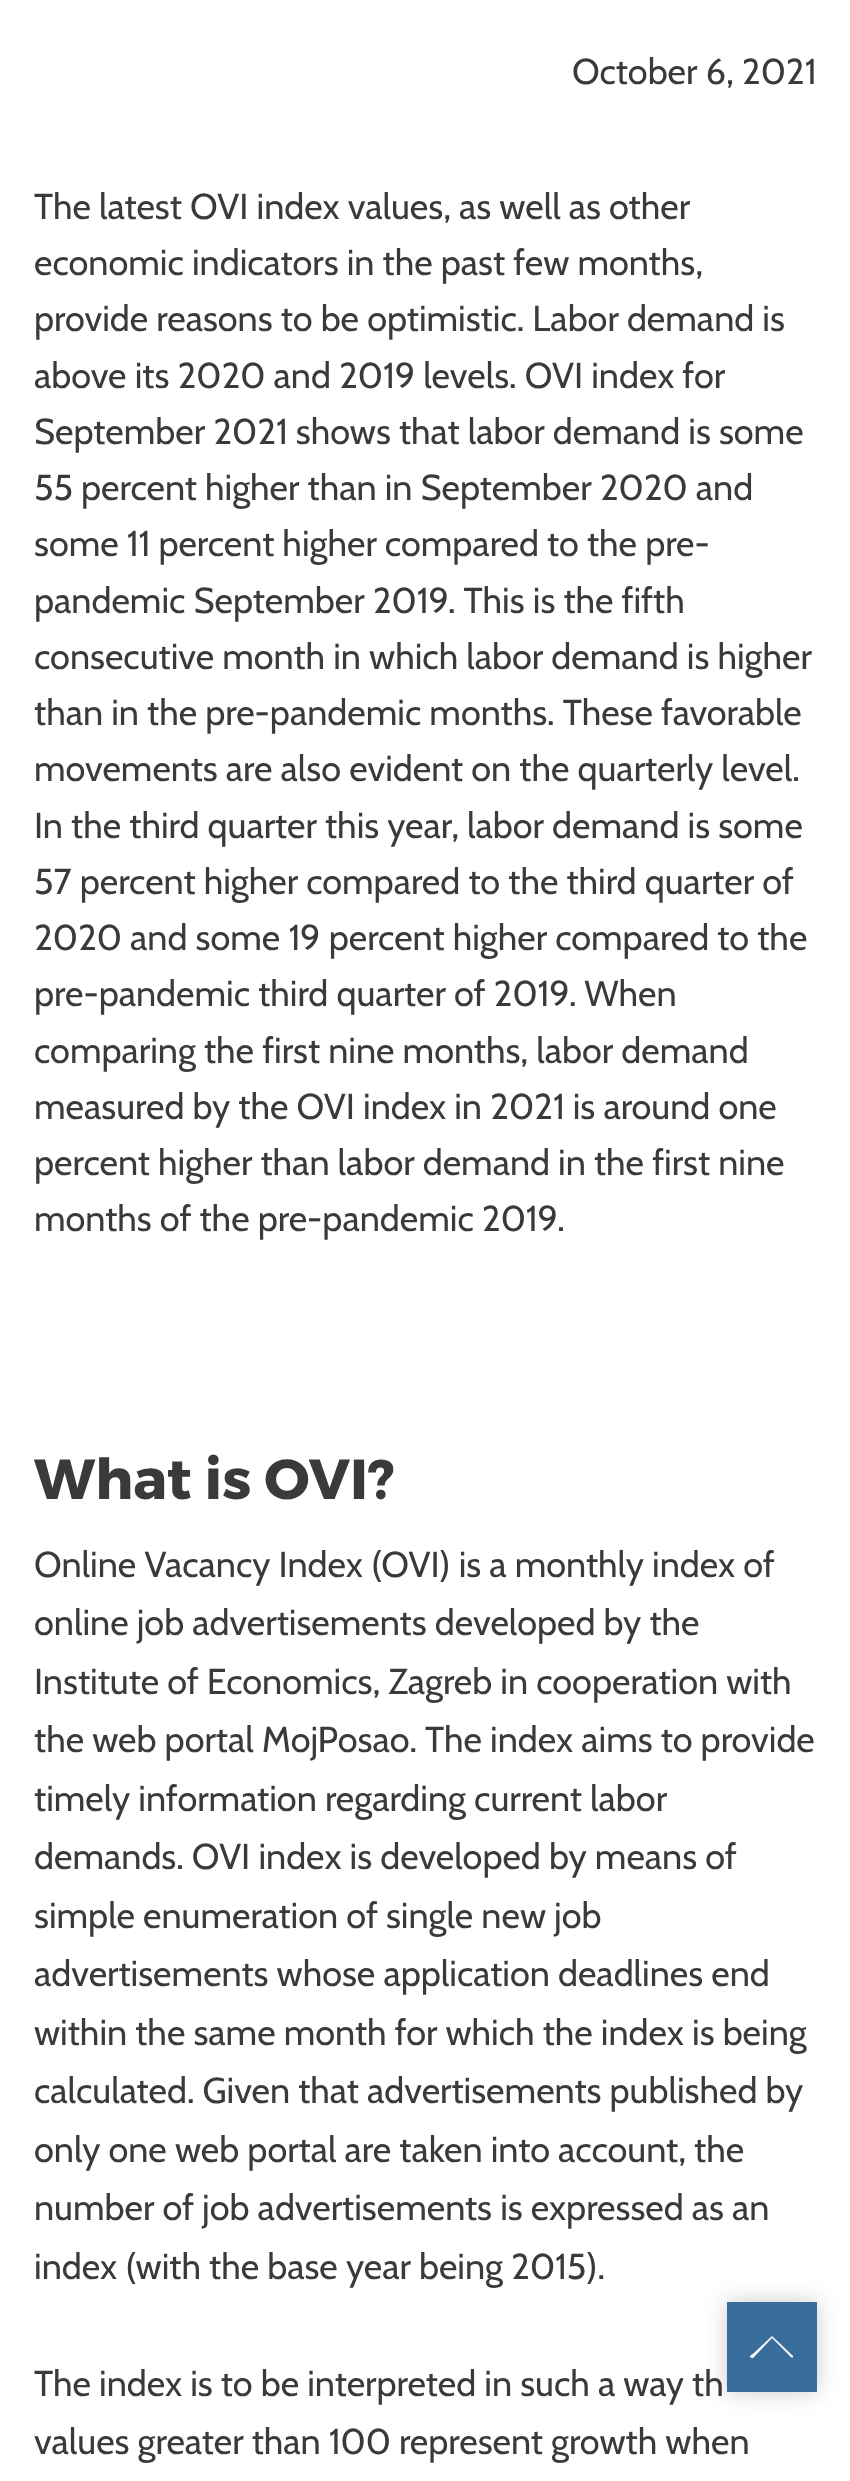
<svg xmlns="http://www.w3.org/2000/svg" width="850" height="2481">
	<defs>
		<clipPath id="clip1"><path d="M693 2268H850V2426H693ZM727 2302H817V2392H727Z" clip-rule="evenodd" /></clipPath>
	</defs>
	<rect width="100%" height="100%" fill="#FFFFFF" />
	<g font-family="Cabin" font-size="36" fill="#3A3A3A">
		<text x="572" y="84">October 6, 2021</text>
		<text x="34" y="219">The latest OVI index values, as well as other</text>
		<text x="34" y="275">economic indicators in the past few months,</text>
		<text x="34" y="331">provide reasons to be optimistic. Labor demand is</text>
		<text x="34" y="388">above its 2020 and 2019 levels. OVI index for</text>
		<text x="34" y="444">September 2021 shows that labor demand is some</text>
		<text x="34" y="500">55 percent higher than in September 2020 and</text>
		<text x="34" y="556">some 11 percent higher compared to the pre-</text>
		<text x="34" y="613">pandemic September 2019. This is the fifth</text>
		<text x="34" y="669">consecutive month in which labor demand is higher</text>
		<text x="34" y="725">than in the pre-pandemic months. These favorable</text>
		<text x="34" y="781">movements are also evident on the quarterly level.</text>
		<text x="34" y="838">In the third quarter this year, labor demand is some</text>
		<text x="34" y="894">57 percent higher compared to the third quarter of</text>
		<text x="34" y="950">2020 and some 19 percent higher compared to the</text>
		<text x="34" y="1006">pre-pandemic third quarter of 2019. When</text>
		<text x="34" y="1063">comparing the first nine months, labor demand</text>
		<text x="34" y="1119">measured by the OVI index in 2021 is around one</text>
		<text x="34" y="1175">percent higher than labor demand in the first nine</text>
		<text x="34" y="1231">months of the pre-pandemic 2019.</text>
	</g>
	<text x="34" y="1499" font-family="Montserrat" font-size="56.25" font-weight="700" fill="#3A3A3A">What is OVI?</text>
	<g font-family="Cabin" font-size="36" fill="#3A3A3A">
		<text x="34" y="1577">Online Vacancy Index (OVI) is a monthly index of</text>
		<text x="34" y="1635">online job advertisements developed by the</text>
		<text x="34" y="1694">Institute of Economics, Zagreb in cooperation with</text>
		<text x="34" y="1752">the web portal MojPosao. The index aims to provide</text>
		<text x="34" y="1811">timely information regarding current labor</text>
		<text x="34" y="1869">demands. OVI index is developed by means of</text>
		<text x="34" y="1928">simple enumeration of single new job</text>
		<text x="34" y="1986">advertisements whose application deadlines end</text>
		<text x="34" y="2045">within the same month for which the index is being</text>
		<text x="34" y="2103">calculated. Given that advertisements published by</text>
		<text x="34" y="2162">only one web portal are taken into account, the</text>
		<text x="34" y="2220">number of job advertisements is expressed as an</text>
		<text x="34" y="2279">index (with the base year being 2015).</text>
		<text x="34" y="2396">The index is to be interpreted in such a way th</text>
		<text x="34" y="2454">values greater than 100 represent growth when</text>
	</g>
	<g clip-path="url(#clip1)">
		<rect x="727" y="2302" width="90" height="90" fill="#000000" fill-opacity="0.2" filter="blur(11px)" />
	</g>
	<rect x="727" y="2302" width="90" height="90" fill="#074883" fill-opacity="0.8" />
	<path d="M772 2338L788 2354C790 2356 792 2359 793 2357V2356L772 2336L754 2353C753 2354 750 2355 750 2357C751 2358 752 2358 753 2358Z" fill="#FFFFFF" />
</svg>
